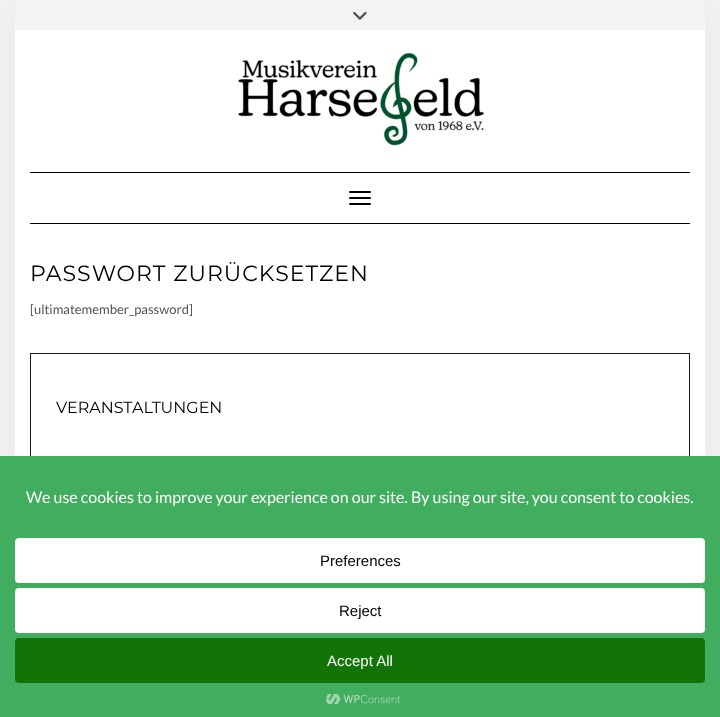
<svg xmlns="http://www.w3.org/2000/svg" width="720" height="717">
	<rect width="100%" height="100%" fill="#F4F4F4" />
	<rect x="15" y="0" width="690" height="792" fill="#000000" fill-opacity="0.06" filter="blur(25px)" />
	<rect x="15" y="30" width="690" height="426" fill="#FFFFFF" />
	<rect x="15" y="0" width="690" height="30" fill="#F3F3F3" />
	<image x="353" y="11" width="14" height="9" href="assets/img1.png" />
	<image x="238" y="52" width="246" height="94" href="assets/img2.png" />
	<rect x="30" y="172" width="660" height="1" fill="#000000" />
	<rect x="30" y="223" width="660" height="1" fill="#000000" />
	<rect x="349" y="191" width="22" height="2" rx="1" fill="#000000" />
	<rect x="349" y="197" width="22" height="2" rx="1" fill="#000000" />
	<rect x="349" y="203" width="22" height="2" rx="1" fill="#000000" />
	<text x="30" y="281" font-family="Montserrat" font-size="22" letter-spacing="1" fill="#000000">PASSWORT ZURÜCKSETZEN</text>
	<text x="30" y="314" font-family="Lato" font-size="13" fill="#545454">[ultimatemember_password]</text>
	<rect x="30.5" y="353.5" width="659" height="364" fill="none" stroke="#1A1A1A" />
	<text x="56" y="413" font-family="Montserrat" font-size="16" fill="#000000">VERANSTALTUNGEN</text>
	<rect x="0" y="456" width="720" height="261" fill="#40AE5E" />
	<text x="26" y="503" font-family="Lato" font-size="16" fill="#FFFFFF">We use cookies to improve your experience on our site. By using our site, you consent to cookies.</text>
	<rect x="15" y="538" width="690" height="45" rx="4" fill="#FFFFFF" />
	<text x="320" y="566" font-family="Liberation Sans" font-size="15" fill="#000000">Preferences</text>
	<rect x="15" y="588" width="690" height="45" rx="4" fill="#FFFFFF" />
	<text x="339" y="616" font-family="Liberation Sans" font-size="15" fill="#000000">Reject</text>
	<rect x="15" y="638" width="690" height="45" rx="4" fill="#127307" />
	<text x="327" y="666" font-family="Liberation Sans" font-size="15" fill="#FFFFFF">Accept All</text>
	<image x="325" y="694" width="75" height="11" href="assets/img3.png" />
</svg>
